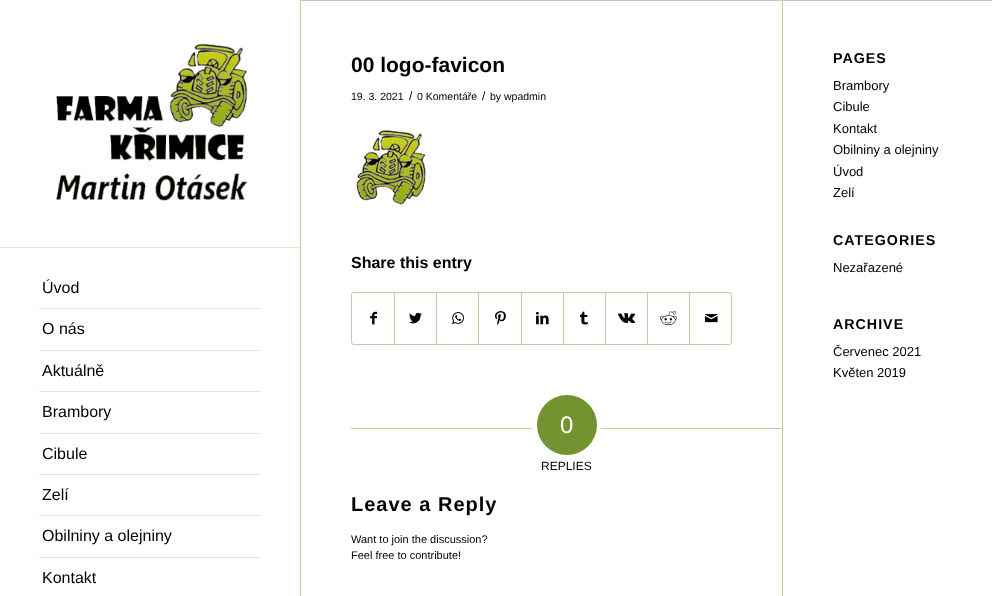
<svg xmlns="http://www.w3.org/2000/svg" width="992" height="596">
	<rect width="100%" height="100%" fill="#FFFFFF" />
	<rect x="0" y="247" width="300" height="1" fill="#EDE4D7" />
	<image x="56" y="43" width="192" height="158" href="assets/img1.png" />
	<rect x="39" y="308" width="222" height="1" fill="#EDE4D7" />
	<text x="42" y="293" font-family="Liberation Sans" font-size="16" fill="#000000">Úvod</text>
	<rect x="39" y="350" width="222" height="1" fill="#EDE4D7" />
	<text x="42" y="334" font-family="Liberation Sans" font-size="16" fill="#000000">O nás</text>
	<rect x="39" y="391" width="222" height="1" fill="#EDE4D7" />
	<text x="42" y="376" font-family="Liberation Sans" font-size="16" fill="#000000">Aktuálně</text>
	<rect x="39" y="433" width="222" height="1" fill="#EDE4D7" />
	<text x="42" y="417" font-family="Liberation Sans" font-size="16" fill="#000000">Brambory</text>
	<rect x="39" y="474" width="222" height="1" fill="#EDE4D7" />
	<text x="42" y="459" font-family="Liberation Sans" font-size="16" fill="#000000">Cibule</text>
	<rect x="39" y="515" width="222" height="1" fill="#EDE4D7" />
	<text x="42" y="500" font-family="Liberation Sans" font-size="16" fill="#000000">Zelí</text>
	<rect x="39" y="557" width="222" height="1" fill="#EDE4D7" />
	<g font-family="Liberation Sans" font-size="16" fill="#000000">
		<text x="42" y="541">Obilniny a olejniny</text>
		<text x="42" y="583">Kontakt</text>
	</g>
	<rect x="300" y="0" width="1" height="596" fill="#D6C3A7" />
	<rect x="301" y="0" width="691" height="1" fill="#D6C3A7" />
	<rect x="782" y="1" width="1" height="595" fill="#D6C3A7" />
	<text x="351" y="72" font-family="Liberation Sans" font-size="21" font-weight="700" fill="#000000">00 logo-favicon</text>
	<text x="351" y="100" font-family="Liberation Sans" font-size="10.5" fill="#000000">19. 3. 2021</text>
	<text x="409" y="100" font-family="Liberation Sans" font-size="12" fill="#000000">/</text>
	<text x="417" y="100" font-family="Liberation Sans" font-size="10.5" fill="#000000">0 Komentáře</text>
	<text x="482" y="100" font-family="Liberation Sans" font-size="12" fill="#000000">/</text>
	<text x="490" y="100" font-family="Liberation Sans" font-size="10.5" fill="#000000">by wpadmin</text>
	<image x="356" y="130" width="70" height="75" href="assets/img2.png" />
	<text x="351" y="268" font-family="Liberation Sans" font-size="16" font-weight="700" fill="#000000">Share this entry</text>
	<rect x="351.5" y="292.5" width="380" height="52" rx="2.5" fill="none" stroke="#D6C3A7" />
	<image x="370" y="311" width="7" height="14" href="assets/img3.png" />
	<rect x="394" y="293" width="1" height="51" fill="#D6C3A7" />
	<image x="409" y="312" width="13" height="12" href="assets/img4.png" />
	<rect x="436" y="293" width="1" height="51" fill="#D6C3A7" />
	<image x="452" y="312" width="12" height="13" href="assets/img5.png" />
	<rect x="478" y="293" width="1" height="51" fill="#D6C3A7" />
	<image x="495" y="311" width="11" height="14" href="assets/img6.png" />
	<rect x="521" y="293" width="1" height="51" fill="#D6C3A7" />
	<image x="536" y="311" width="13" height="14" href="assets/img7.png" />
	<rect x="563" y="293" width="1" height="51" fill="#D6C3A7" />
	<image x="580" y="311" width="8" height="14" href="assets/img8.png" />
	<rect x="605" y="293" width="1" height="51" fill="#D6C3A7" />
	<image x="618" y="313" width="17" height="10" href="assets/img9.png" />
	<rect x="647" y="293" width="1" height="51" fill="#D6C3A7" />
	<image x="660" y="311" width="17" height="15" href="assets/img10.png" />
	<rect x="689" y="293" width="1" height="51" fill="#D6C3A7" />
	<image x="705" y="314" width="13" height="9" href="assets/img11.png" />
	<rect x="351" y="428" width="181" height="1" fill="#D6C3A7" />
	<circle cx="567" cy="425" r="30" fill="#719430" />
	<text x="560" y="433" font-family="Liberation Sans" font-size="24" fill="#FFFFFF">0</text>
	<rect x="601" y="428" width="181" height="1" fill="#D6C3A7" />
	<text x="541" y="470" font-family="Liberation Sans" font-size="12" fill="#000000">REPLIES</text>
	<text x="351" y="511" font-family="Liberation Sans" font-size="20" font-weight="700" letter-spacing="1" fill="#000000">Leave a Reply</text>
	<g font-family="Liberation Sans" font-size="11" fill="#000000">
		<text x="351" y="543">Want to join the discussion?</text>
		<text x="351" y="559">Feel free to contribute!</text>
	</g>
	<text x="833" y="63" font-family="Liberation Sans" font-size="14.25" font-weight="700" letter-spacing="1" fill="#000000">PAGES</text>
	<g font-family="Liberation Sans" font-size="13" fill="#000000">
		<text x="833" y="90">Brambory</text>
		<text x="833" y="111">Cibule</text>
		<text x="833" y="133">Kontakt</text>
		<text x="833" y="154">Obilniny a olejniny</text>
		<text x="833" y="176">Úvod</text>
		<text x="833" y="197">Zelí</text>
	</g>
	<text x="833" y="245" font-family="Liberation Sans" font-size="14.25" font-weight="700" letter-spacing="1" fill="#000000">CATEGORIES</text>
	<text x="833" y="272" font-family="Liberation Sans" font-size="13" fill="#000000">Nezařazené</text>
	<text x="833" y="329" font-family="Liberation Sans" font-size="14.25" font-weight="700" letter-spacing="1" fill="#000000">ARCHIVE</text>
	<g font-family="Liberation Sans" font-size="13" fill="#000000">
		<text x="833" y="356">Červenec 2021</text>
		<text x="833" y="377">Květen 2019</text>
	</g>
</svg>
